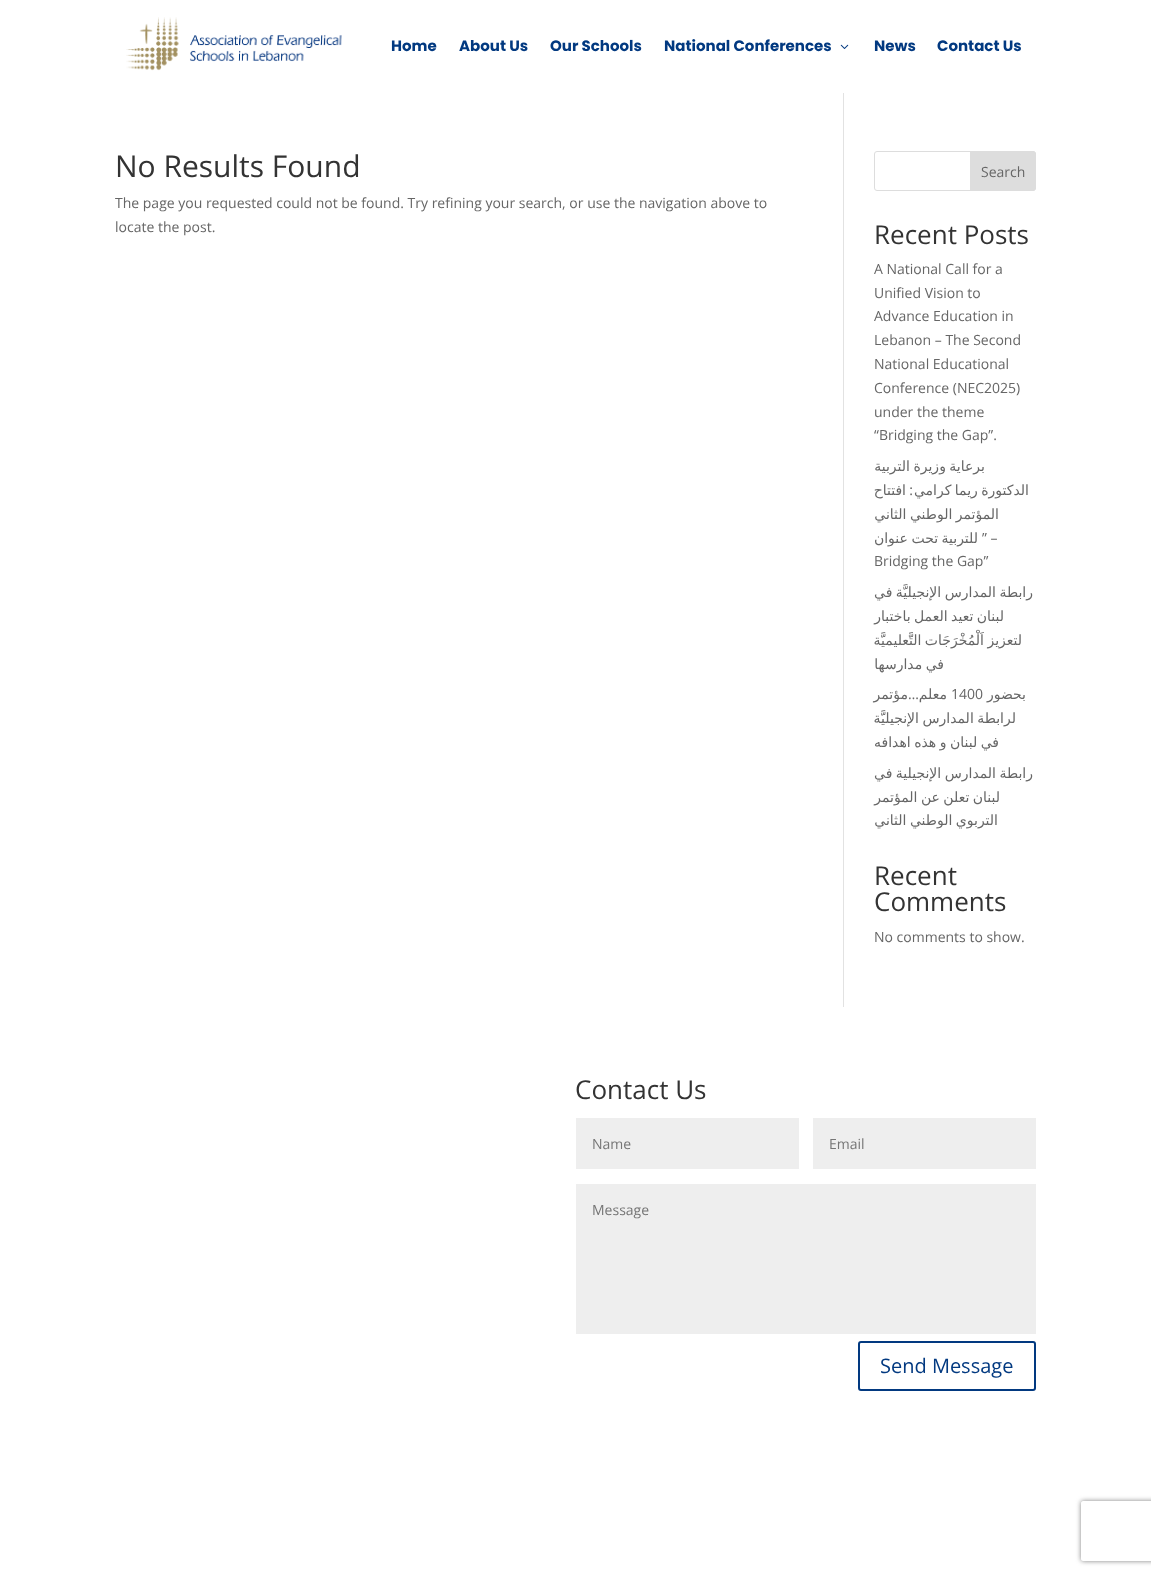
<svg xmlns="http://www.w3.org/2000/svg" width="1151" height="1575">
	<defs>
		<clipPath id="clip1"><path d="M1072 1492H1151V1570H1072ZM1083 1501H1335C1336 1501 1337 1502 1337 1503V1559C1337 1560 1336 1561 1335 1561H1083C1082 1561 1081 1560 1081 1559V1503C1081 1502 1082 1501 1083 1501Z" clip-rule="evenodd" /></clipPath>
	</defs>
	<rect width="100%" height="100%" fill="#FFFFFF" />
	<image x="126" y="17" width="216" height="54" href="assets/img1.png" />
	<g font-family="Poppins" font-size="15" font-weight="700" fill="#023980">
		<text x="391" y="51">Home</text>
		<text x="459" y="51">About Us</text>
		<text x="550" y="51">Our Schools</text>
		<text x="664" y="51">National Conferences</text>
	</g>
	<image x="840" y="44" width="9" height="5" href="assets/img2.png" />
	<g font-family="Poppins" font-size="15" font-weight="700" fill="#023980">
		<text x="874" y="51">News</text>
		<text x="937" y="51">Contact Us</text>
	</g>
	<rect x="843" y="93" width="1" height="914" fill="#E2E2E2" />
	<text x="115" y="177" font-family="Open Sans" font-size="30" fill="#333333">No Results Found</text>
	<g font-family="Open Sans" font-size="14" fill="#666666">
		<text x="115" y="208">The page you requested could not be found. Try refining your search, or use the navigation above to</text>
		<text x="115" y="232">locate the post.</text>
	</g>
	<rect x="874.5" y="151.5" width="161" height="39" rx="2.5" fill="none" stroke="#DDDDDD" />
	<path d="M970.5 151.5H1033C1034.5 151.5 1035.5 152.5 1035.5 154V188C1035.5 189.5 1034.5 190.5 1033 190.5H970.5Z" fill="#DDDDDD" stroke="#DDDDDD" />
	<text x="981" y="177" font-family="Open Sans" font-size="14" fill="#666666">Search</text>
	<text x="874" y="244" font-family="Open Sans" font-size="26" fill="#333333">Recent Posts</text>
	<g font-family="Open Sans" font-size="14" fill="#666666">
		<text x="874" y="274">A National Call for a</text>
		<text x="874" y="298">Unified Vision to</text>
		<text x="874" y="321">Advance Education in</text>
		<text x="874" y="345">Lebanon – The Second</text>
		<text x="874" y="369">National Educational</text>
		<text x="874" y="393">Conference (NEC2025)</text>
		<text x="874" y="417">under the theme</text>
		<text x="874" y="440">“Bridging the Gap”.</text>
	</g>
	<g font-family="DejaVu Sans" font-size="14" direction="rtl" fill="#666666">
		<text x="985" y="471" word-spacing="-1">برعاية وزيرة التربية</text>
		<text x="906" y="495">افتتاح</text>
	</g>
	<text x="913" y="495" font-family="Open Sans" font-size="14" direction="rtl" fill="#666666">:</text>
	<g font-family="DejaVu Sans" font-size="14" direction="rtl" fill="#666666">
		<text x="1029" y="495" word-spacing="-1">الدكتورة ريما كرامي</text>
		<text x="999" y="519" word-spacing="-1">المؤتمر الوطني الثاني</text>
		<text x="978" y="543" word-spacing="-1">للتربية تحت عنوان</text>
	</g>
	<g font-family="Open Sans" font-size="14" fill="#666666">
		<text x="982" y="543">” –</text>
		<text x="874" y="566">Bridging the Gap”</text>
	</g>
	<g font-family="DejaVu Sans" font-size="14" direction="rtl" fill="#666666">
		<text x="1033" y="597" word-spacing="-1">رابطة المدارس الإنجيليَّة في</text>
		<text x="1004" y="621" word-spacing="-1">لبنان تعيد العمل باختبار</text>
		<text x="1022" y="645" word-spacing="-1">لتعزيز اَلْمُخْرَجَات التَّعليميَّة</text>
		<text x="944" y="669" word-spacing="-1">في مدارسها</text>
		<text x="908" y="699">مؤتمر</text>
	</g>
	<text x="919" y="699" font-family="Open Sans" font-size="14" direction="rtl" fill="#666666">…</text>
	<text x="947" y="699" font-family="DejaVu Sans" font-size="14" direction="rtl" fill="#666666">معلم</text>
	<text x="951" y="699" font-family="Open Sans" font-size="14" fill="#666666">1400</text>
	<g font-family="DejaVu Sans" font-size="14" direction="rtl" fill="#666666">
		<text x="1026" y="699">بحضور</text>
		<text x="1016" y="723" word-spacing="-1">لرابطة المدارس الإنجيليَّة</text>
		<text x="999" y="747" word-spacing="-1">في لبنان و هذه اهدافه</text>
		<text x="1033" y="778" word-spacing="-1">رابطة المدارس الإنجيلية في</text>
		<text x="1000" y="802" word-spacing="-1">لبنان تعلن عن المؤتمر</text>
		<text x="998" y="825" word-spacing="-1">التربوي الوطني الثاني</text>
	</g>
	<g font-family="Open Sans" font-size="26" fill="#333333">
		<text x="874" y="885">Recent</text>
		<text x="874" y="911">Comments</text>
	</g>
	<text x="874" y="942" font-family="Open Sans" font-size="14" fill="#666666">No comments to show.</text>
	<text x="575" y="1099" font-family="Open Sans" font-size="26" fill="#333333">Contact Us</text>
	<rect x="576" y="1118" width="223" height="51" fill="#EEEEEE" />
	<text x="592" y="1149" font-family="Open Sans" font-size="14" fill="#757575">Name</text>
	<rect x="813" y="1118" width="223" height="51" fill="#EEEEEE" />
	<text x="829" y="1149" font-family="Open Sans" font-size="14" fill="#757575">Email</text>
	<rect x="576" y="1184" width="460" height="150" fill="#EEEEEE" />
	<text x="592" y="1215" font-family="Open Sans" font-size="14" fill="#757575">Message</text>
	<rect x="859" y="1342" width="176" height="48" rx="2" fill="none" stroke="#023980" stroke-width="2" />
	<text x="880" y="1373" font-family="Open Sans" font-size="20" fill="#023980">Send Message</text>
	<g clip-path="url(#clip1)">
		<rect x="1081" y="1501" width="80" height="60" rx="2" fill="#808080" filter="blur(2.5px)" />
	</g>
</svg>
